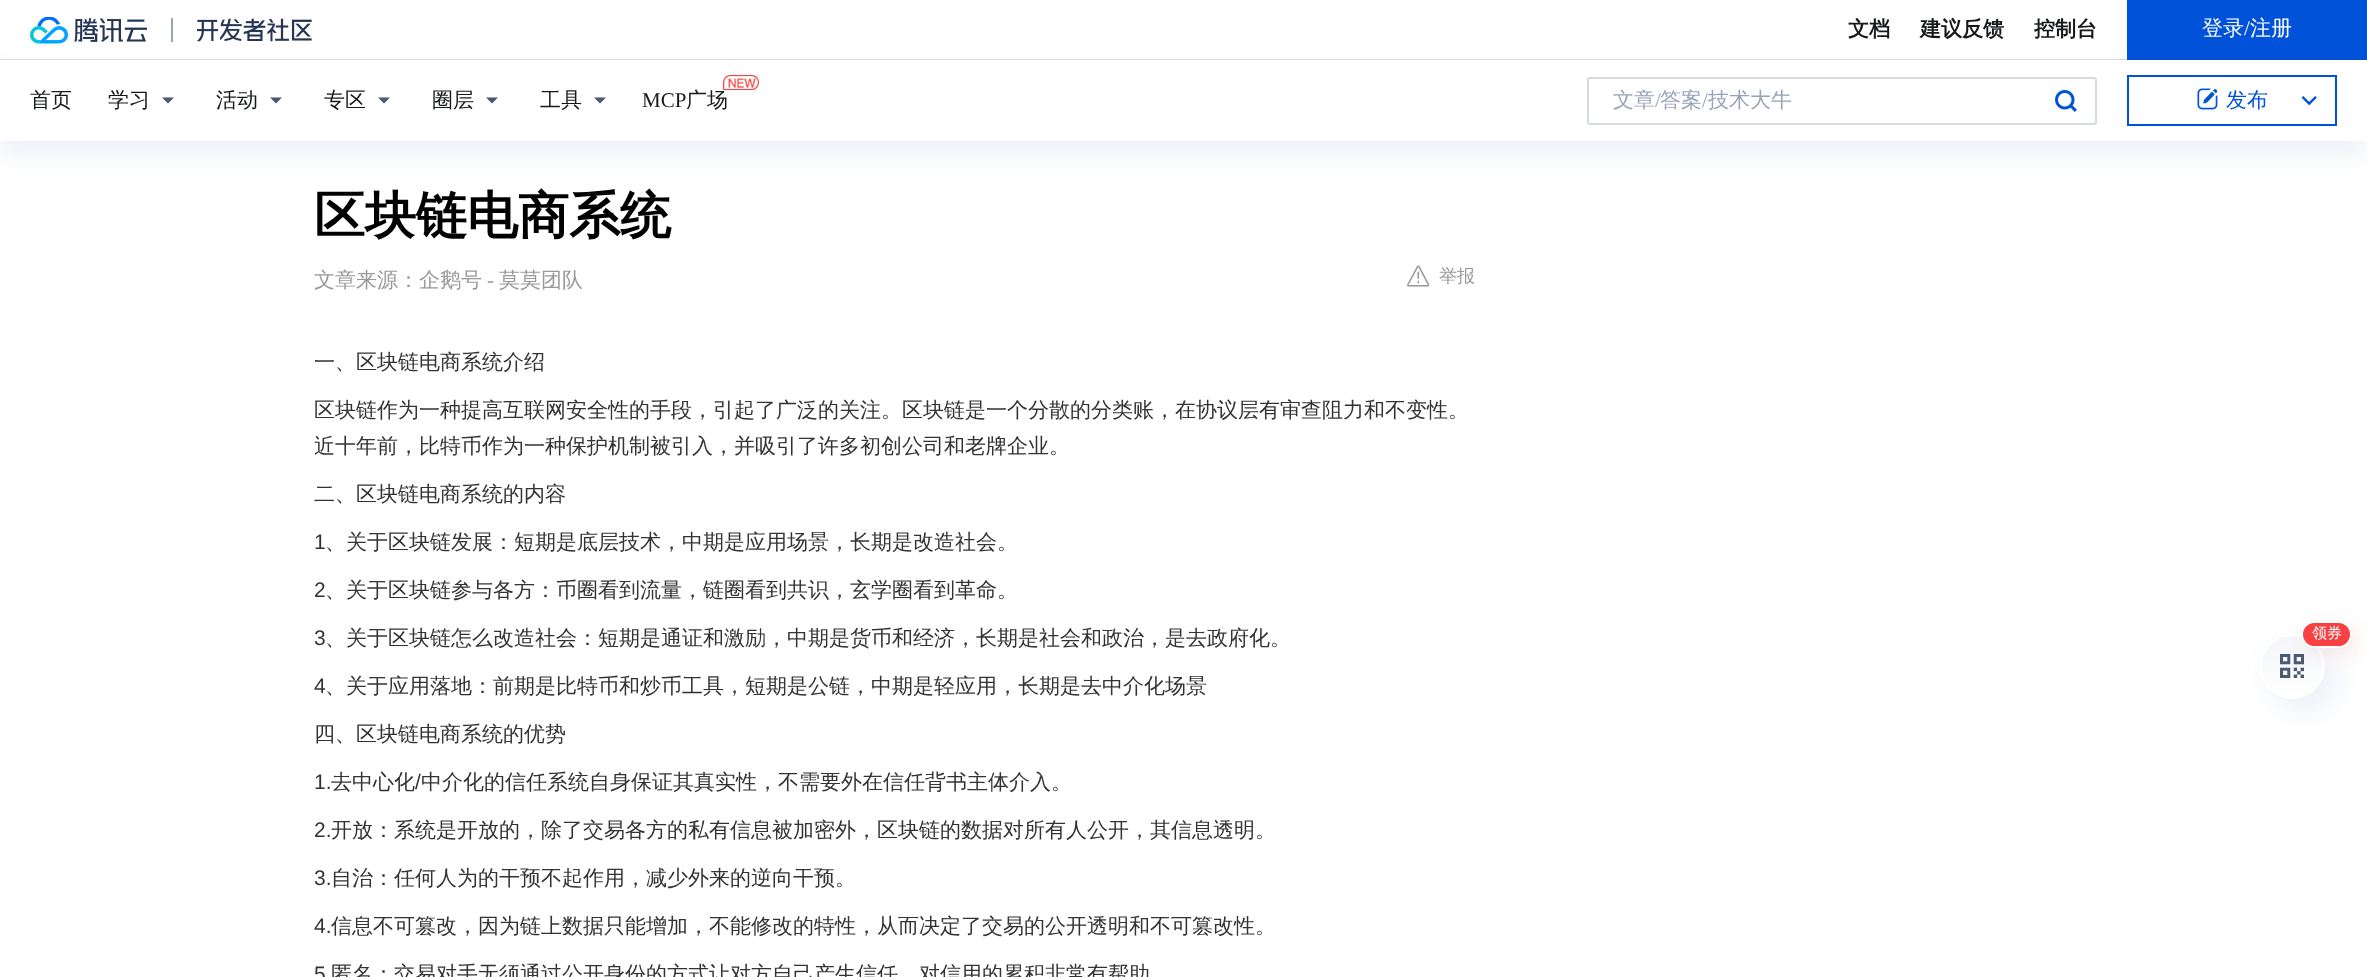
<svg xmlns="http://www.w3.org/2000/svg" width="2367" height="977">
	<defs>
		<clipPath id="clip1"><rect x="2259" y="633" width="66" height="66" rx="33" /></clipPath>
		<linearGradient id="g1" gradientUnits="userSpaceOnUse" x1="2292" y1="696" x2="2292" y2="636"><stop offset="0" stop-color="#FFFFFF" /><stop offset="1" stop-color="#F3F5F8" /></linearGradient>
	</defs>
	<rect width="100%" height="100%" fill="#FFFFFF" />
	<rect x="0" y="59" width="2127" height="1" fill="#D6DBE3" />
	<image x="30" y="17" width="117" height="27" href="assets/img1.png" />
	<rect x="171" y="18" width="2" height="24" fill="#9BA6B7" />
	<image x="197" y="18" width="115" height="24" href="assets/img2.png" />
	<g font-family="WenQuanYi Zen Hei" font-size="21" font-weight="700" fill="#16181A">
		<text x="1848" y="36">文档</text>
		<text x="1920" y="36">建议反馈</text>
		<text x="2034" y="36">控制台</text>
	</g>
	<rect x="2127" y="0" width="240" height="60" fill="#0052D9" />
	<text x="2202" y="35" font-family="WenQuanYi Zen Hei" font-size="21" font-weight="500" fill="#FFFFFF">登录</text>
	<text x="2244" y="35" font-family="Liberation Serif" font-size="21" fill="#FFFFFF">/</text>
	<text x="2250" y="35" font-family="WenQuanYi Zen Hei" font-size="21" font-weight="500" fill="#FFFFFF">注册</text>
	<rect x="0" y="72" width="2367" height="81" fill="#3763AA" fill-opacity="0.1" filter="blur(12px)" />
	<rect x="0" y="60" width="2367" height="81" fill="#FFFFFF" />
	<g font-family="WenQuanYi Zen Hei" font-size="21" font-weight="500" fill="#16181A">
		<text x="30" y="107">首页</text>
		<text x="108" y="107">学习</text>
	</g>
	<path d="M168 103.5L174 97.5H162Z" fill="#495770" fill-rule="evenodd" />
	<text x="216" y="107" font-family="WenQuanYi Zen Hei" font-size="21" font-weight="500" fill="#16181A">活动</text>
	<path d="M276 103.5L282 97.5H270Z" fill="#495770" fill-rule="evenodd" />
	<text x="324" y="107" font-family="WenQuanYi Zen Hei" font-size="21" font-weight="500" fill="#16181A">专区</text>
	<path d="M384 103.5L390 97.5H378Z" fill="#495770" fill-rule="evenodd" />
	<text x="432" y="107" font-family="WenQuanYi Zen Hei" font-size="21" font-weight="500" fill="#16181A">圈层</text>
	<path d="M492 103.5L498 97.5H486Z" fill="#495770" fill-rule="evenodd" />
	<text x="540" y="107" font-family="WenQuanYi Zen Hei" font-size="21" font-weight="500" fill="#16181A">工具</text>
	<path d="M600 103.5L606 97.5H594Z" fill="#495770" fill-rule="evenodd" />
	<text x="686" y="107" font-family="WenQuanYi Zen Hei" font-size="21" font-weight="500" fill="#16181A">广场</text>
	<image x="722" y="75" width="37" height="15" href="assets/img3.png" />
	<text x="642" y="107" font-family="Liberation Serif" font-size="21" fill="#16181A">MCP</text>
	<rect x="1588" y="78" width="508" height="46" rx="2" fill="none" stroke="#D6DBE3" stroke-width="2" />
	<text x="1613" y="107" font-family="WenQuanYi Zen Hei" font-size="21" font-weight="500" fill="#97A3B7">文章</text>
	<text x="1655" y="107" font-family="Liberation Serif" font-size="21" fill="#97A3B7">/</text>
	<text x="1660" y="107" font-family="WenQuanYi Zen Hei" font-size="21" font-weight="500" fill="#97A3B7">答案</text>
	<text x="1702" y="107" font-family="Liberation Serif" font-size="21" fill="#97A3B7">/</text>
	<text x="1708" y="107" font-family="WenQuanYi Zen Hei" font-size="21" font-weight="500" fill="#97A3B7">技术大牛</text>
	<image x="2055" y="90" width="22" height="22" href="assets/img4.png" />
	<rect x="2128" y="76" width="208" height="49" fill="none" stroke="#0052D9" stroke-width="2" />
	<image x="2197" y="88" width="21" height="22" href="assets/img5.png" />
	<text x="2226" y="107" font-family="WenQuanYi Zen Hei" font-size="21" font-weight="500" fill="#0052D9">发布</text>
	<image x="2301" y="96" width="16" height="10" href="assets/img6.png" />
	<text x="314" y="233" font-family="WenQuanYi Zen Hei" font-size="51" font-weight="700" fill="#000000">区块链电商系统</text>
	<text x="314" y="287" font-family="WenQuanYi Zen Hei" font-size="21" font-weight="500" fill="#999999">文章来源：企鹅号</text>
	<text x="487" y="287" font-family="Liberation Serif" font-size="21" fill="#999999">-</text>
	<text x="499" y="287" font-family="WenQuanYi Zen Hei" font-size="21" font-weight="500" fill="#999999">莫莫团队</text>
	<image x="1407" y="265" width="23" height="22" href="assets/img7.png" />
	<text x="1439" y="282" font-family="WenQuanYi Zen Hei" font-size="18" font-weight="500" fill="#999999">举报</text>
	<g font-family="WenQuanYi Zen Hei" font-size="21" font-weight="500" fill="#333333">
		<text x="314" y="369">一、区块链电商系统介绍</text>
		<text x="314" y="417">区块链作为一种提高互联网安全性的手段，引起了广泛的关注。区块链是一个分散的分类账，在协议层有审查阻力和不变性。</text>
		<text x="314" y="453">近十年前，比特币作为一种保护机制被引入，并吸引了许多初创公司和老牌企业。</text>
		<text x="314" y="501">二、区块链电商系统的内容</text>
	</g>
	<text x="314" y="549" font-family="Liberation Sans" font-size="21" fill="#333333">1</text>
	<text x="325" y="549" font-family="WenQuanYi Zen Hei" font-size="21" font-weight="500" fill="#333333">、关于区块链发展：短期是底层技术，中期是应用场景，长期是改造社会。</text>
	<text x="314" y="597" font-family="Liberation Sans" font-size="21" fill="#333333">2</text>
	<text x="325" y="597" font-family="WenQuanYi Zen Hei" font-size="21" font-weight="500" fill="#333333">、关于区块链参与各方：币圈看到流量，链圈看到共识，玄学圈看到革命。</text>
	<text x="314" y="645" font-family="Liberation Sans" font-size="21" fill="#333333">3</text>
	<text x="325" y="645" font-family="WenQuanYi Zen Hei" font-size="21" font-weight="500" fill="#333333">、关于区块链怎么改造社会：短期是通证和激励，中期是货币和经济，长期是社会和政治，是去政府化。</text>
	<text x="314" y="693" font-family="Liberation Sans" font-size="21" fill="#333333">4</text>
	<g font-family="WenQuanYi Zen Hei" font-size="21" font-weight="500" fill="#333333">
		<text x="325" y="693">、关于应用落地：前期是比特币和炒币工具，短期是公链，中期是轻应用，长期是去中介化场景</text>
		<text x="314" y="741">四、区块链电商系统的优势</text>
	</g>
	<text x="314" y="789" font-family="Liberation Sans" font-size="21" fill="#333333">1.</text>
	<text x="331" y="789" font-family="WenQuanYi Zen Hei" font-size="21" font-weight="500" fill="#333333">去中心化</text>
	<text x="415" y="789" font-family="Liberation Sans" font-size="21" fill="#333333">/</text>
	<text x="421" y="789" font-family="WenQuanYi Zen Hei" font-size="21" font-weight="500" fill="#333333">中介化的信任系统自身保证其真实性，不需要外在信任背书主体介入。</text>
	<text x="314" y="837" font-family="Liberation Sans" font-size="21" fill="#333333">2.</text>
	<text x="331" y="837" font-family="WenQuanYi Zen Hei" font-size="21" font-weight="500" fill="#333333">开放：系统是开放的，除了交易各方的私有信息被加密外，区块链的数据对所有人公开，其信息透明。</text>
	<text x="314" y="885" font-family="Liberation Sans" font-size="21" fill="#333333">3.</text>
	<text x="331" y="885" font-family="WenQuanYi Zen Hei" font-size="21" font-weight="500" fill="#333333">自治：任何人为的干预不起作用，减少外来的逆向干预。</text>
	<text x="314" y="933" font-family="Liberation Sans" font-size="21" fill="#333333">4.</text>
	<text x="331" y="933" font-family="WenQuanYi Zen Hei" font-size="21" font-weight="500" fill="#333333">信息不可篡改，因为链上数据只能增加，不能修改的特性，从而决定了交易的公开透明和不可篡改性。</text>
	<text x="314" y="981" font-family="Liberation Sans" font-size="21" fill="#333333">5</text>
	<text x="331" y="981" font-family="WenQuanYi Zen Hei" font-size="21" font-weight="500" fill="#333333">匿名：交易对手无须通过公开身份的方式让对方自己产生信任，对信用的累积非常有帮助</text>
	<rect x="2271" y="645" width="66" height="66" rx="33" fill="#3763AA" fill-opacity="0.1" filter="blur(15px)" />
	<g clip-path="url(#clip1)">
		<rect x="2259" y="636" width="66" height="60" fill="url(#g1)" />
	</g>
	<circle cx="2292" cy="666" r="31.5" fill="none" stroke="#FFFFFF" stroke-width="3" />
	<image x="2280" y="654" width="24" height="24" href="assets/img8.png" />
	<rect x="2307" y="627" width="51" height="27" rx="13.5" fill="#D63535" fill-opacity="0.1" filter="blur(9px)" />
	<rect x="2302" y="622" width="49" height="25" rx="12.5" fill="#F64041" stroke="#FFFFFF" stroke-width="2" />
	<text x="2312" y="638" font-family="WenQuanYi Zen Hei" font-size="15" font-weight="500" fill="#FFFFFF">领券</text>
</svg>
